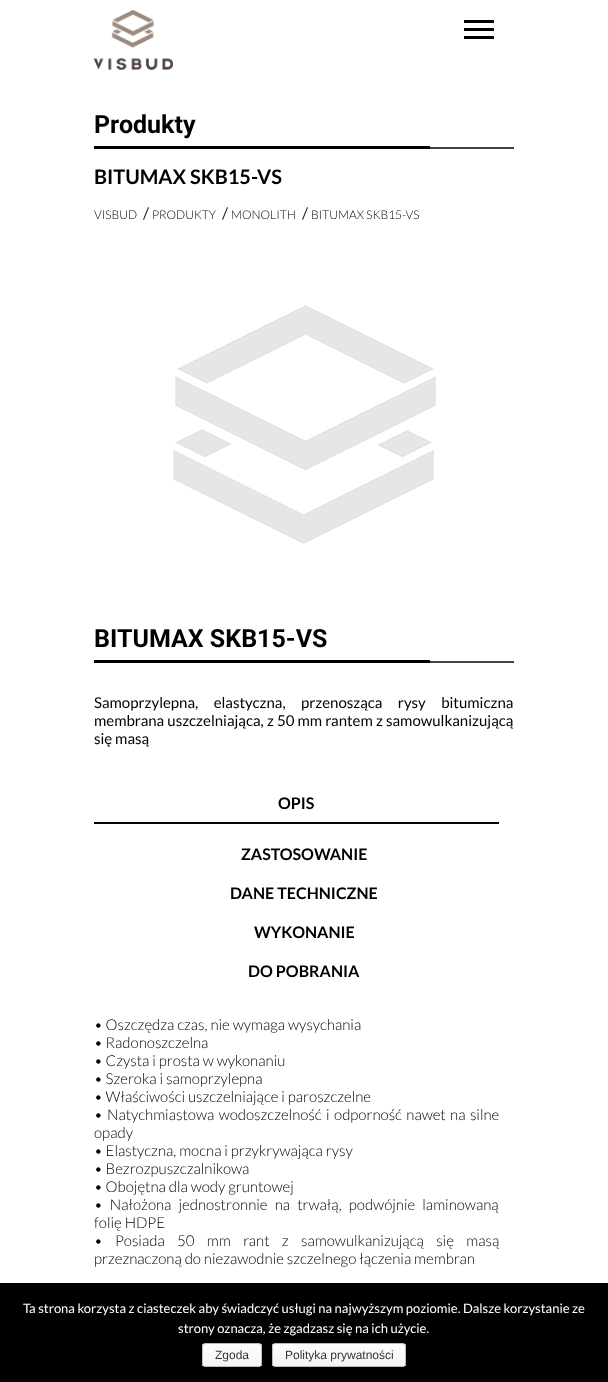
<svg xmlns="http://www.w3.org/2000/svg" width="608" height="1382">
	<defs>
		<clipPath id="clip1"><rect x="202" y="1343" width="60" height="24" rx="3" /></clipPath>
		<linearGradient id="g1" gradientUnits="userSpaceOnUse" x1="232" y1="1344" x2="232" y2="1366"><stop offset="0" stop-color="#FEFEFE" /><stop offset="1" stop-color="#F4F4F4" /></linearGradient>
		<clipPath id="clip2"><rect x="272" y="1343" width="134" height="24" rx="3" /></clipPath>
		<linearGradient id="g2" gradientUnits="userSpaceOnUse" x1="339" y1="1344" x2="339" y2="1366"><stop offset="0" stop-color="#FEFEFE" /><stop offset="1" stop-color="#F4F4F4" /></linearGradient>
	</defs>
	<rect width="100%" height="100%" fill="#FFFFFF" />
	<image x="94" y="10" width="79" height="60" href="assets/img1.png" />
	<rect x="464" y="20" width="30" height="3" fill="#000000" />
	<rect x="464" y="28" width="30" height="3" fill="#000000" />
	<rect x="464" y="36" width="30" height="3" fill="#000000" />
	<text x="94" y="133" font-family="Roboto" font-size="25" font-weight="700" fill="#000000">Produkty</text>
	<rect x="94" y="146" width="336" height="3" fill="#000000" />
	<rect x="430" y="147" width="84" height="2" fill="#444444" />
	<text x="94" y="184" font-family="Lato" font-size="20" font-weight="700" fill="#000000">BITUMAX SKB15-VS</text>
	<text x="94" y="219" font-family="Lato" font-size="12" font-weight="300" fill="#000000">VISBUD</text>
	<text x="143" y="219" font-family="Lato" font-size="16" fill="#212529">/</text>
	<text x="152" y="219" font-family="Lato" font-size="12" font-weight="300" fill="#000000">PRODUKTY</text>
	<text x="222" y="219" font-family="Lato" font-size="16" fill="#212529">/</text>
	<text x="231" y="219" font-family="Lato" font-size="12" font-weight="300" fill="#000000">MONOLITH</text>
	<text x="302" y="219" font-family="Lato" font-size="16" fill="#212529">/</text>
	<text x="311" y="219" font-family="Lato" font-size="12" font-weight="300" fill="#000000">BITUMAX SKB15-VS</text>
	<image x="173" y="305" width="263" height="239" href="assets/img2.png" />
	<text x="94" y="647" font-family="Roboto" font-size="25" font-weight="700" fill="#000000">BITUMAX SKB15-VS</text>
	<rect x="94" y="660" width="336" height="3" fill="#000000" />
	<rect x="430" y="661" width="84" height="2" fill="#444444" />
	<g font-family="Lato" font-size="15" fill="#000000">
		<text x="94" y="708" word-spacing="12.5">Samoprzylepna, elastyczna, przenosząca rysy bitumiczna</text>
		<text x="94" y="726" word-spacing="0.25">membrana uszczelniająca, z 50 mm rantem z samowulkanizującą</text>
		<text x="94" y="744">się masą</text>
	</g>
	<text x="278" y="809" font-family="Lato" font-size="16" font-weight="700" fill="#000000">OPIS</text>
	<rect x="94" y="822" width="405" height="2" fill="#000000" />
	<g font-family="Lato" font-size="16" font-weight="700" fill="#000000">
		<text x="241" y="860">ZASTOSOWANIE</text>
		<text x="230" y="899">DANE TECHNICZNE</text>
		<text x="254" y="938">WYKONANIE</text>
		<text x="248" y="977">DO POBRANIA</text>
	</g>
	<g font-family="Lato" font-size="15" font-weight="300" fill="#000000">
		<text x="94" y="1030">• Oszczędza czas, nie wymaga wysychania</text>
		<text x="94" y="1048">• Radonoszczelna</text>
		<text x="94" y="1066">• Czysta i prosta w wykonaniu</text>
		<text x="94" y="1084">• Szeroka i samoprzylepna</text>
		<text x="94" y="1102">• Właściwości uszczelniające i paroszczelne</text>
		<text x="94" y="1120" word-spacing="1.5">• Natychmiastowa wodoszczelność i odporność nawet na silne</text>
		<text x="94" y="1138">opady</text>
		<text x="94" y="1156">• Elastyczna, mocna i przykrywająca rysy</text>
		<text x="94" y="1174">• Bezrozpuszczalnikowa</text>
		<text x="94" y="1192">• Obojętna dla wody gruntowej</text>
		<text x="94" y="1210" word-spacing="4.25">• Nałożona jednostronnie na trwałą, podwójnie laminowaną</text>
		<text x="94" y="1228">folię HDPE</text>
		<text x="94" y="1246" word-spacing="9.5">• Posiada 50 mm rant z samowulkanizującą się masą</text>
		<text x="94" y="1264">przeznaczoną do niezawodnie szczelnego łączenia membran</text>
	</g>
	<rect x="0" y="1283" width="608" height="99" fill="#000000" />
	<g font-family="Lato" font-size="13" fill="#FFFFFF">
		<text x="23" y="1313">Ta strona korzysta z ciasteczek aby świadczyć usługi na najwyższym poziomie. Dalsze korzystanie ze</text>
		<text x="178" y="1333">strony oznacza, że zgadzasz się na ich użycie.</text>
	</g>
	<g clip-path="url(#clip1)">
		<rect x="202" y="1344" width="60" height="22" fill="url(#g1)" />
	</g>
	<rect x="202.5" y="1343.5" width="59" height="23" rx="2.5" fill="none" stroke="#BBBBBB" />
	<text x="215" y="1359" font-family="Liberation Sans" font-size="12" fill="#333333">Zgoda</text>
	<g clip-path="url(#clip2)">
		<rect x="272" y="1344" width="134" height="22" fill="url(#g2)" />
	</g>
	<rect x="272.5" y="1343.5" width="133" height="23" rx="2.5" fill="none" stroke="#BBBBBB" />
	<text x="285" y="1359" font-family="Liberation Sans" font-size="12" fill="#333333">Polityka prywatności</text>
</svg>
